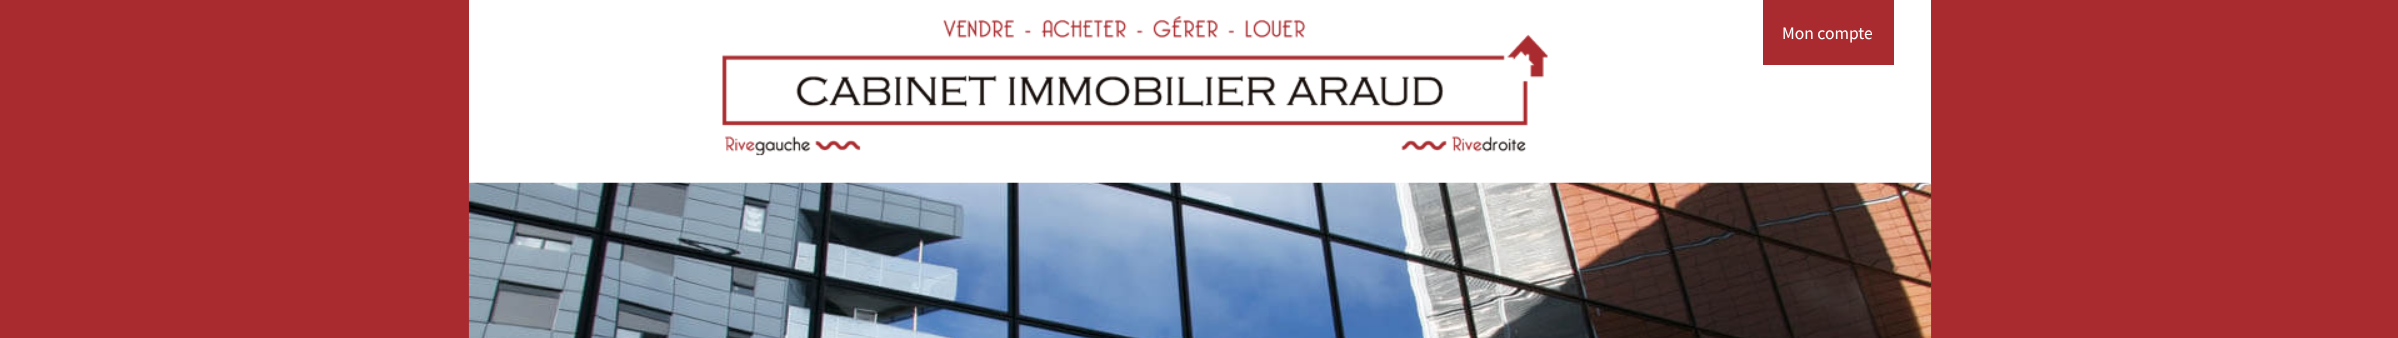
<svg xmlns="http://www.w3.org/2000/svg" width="2398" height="338">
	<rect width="100%" height="100%" fill="#AA2B2F" />
	<rect x="469" y="0" width="1462" height="183" fill="#FFFFFF" />
	<image x="722" y="16" width="826" height="140" href="assets/img1.png" />
	<rect x="1763" y="0" width="131" height="65" fill="#AA2B2F" />
	<text x="1782" y="39" font-family="Source Sans Pro" font-size="17.5" fill="#FFFFFF">Mon compte</text>
	<image x="468" y="182" width="1464" height="156" href="assets/img2.png" />
</svg>
